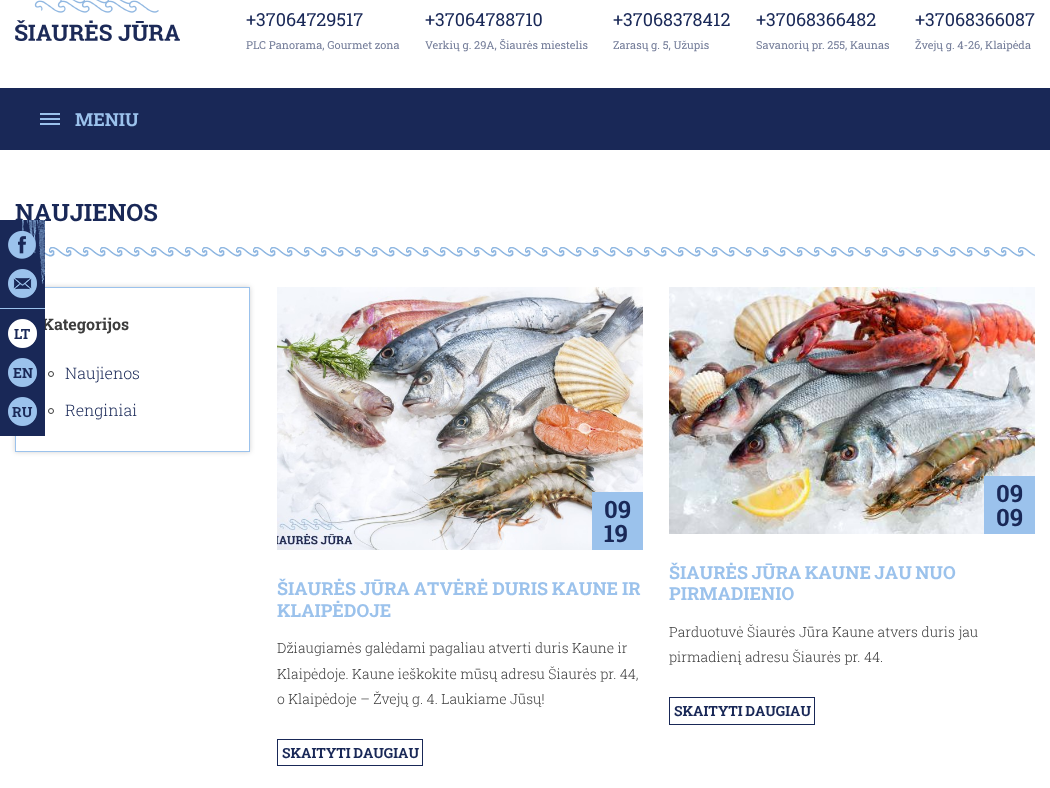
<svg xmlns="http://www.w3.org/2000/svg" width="1050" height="788">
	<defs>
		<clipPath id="clip1"><path d="M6 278H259V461H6ZM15 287H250V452H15Z" clip-rule="evenodd" /></clipPath>
	</defs>
	<rect width="100%" height="100%" fill="#FFFFFF" />
	<image x="15" y="0" width="165" height="41" href="assets/img1.png" />
	<text x="246" y="26" font-family="Roboto Slab" font-size="18" fill="#192857">+37064729517</text>
	<text x="246" y="49" font-family="Roboto Slab" font-size="11" fill="#757E9A">PLC Panorama, Gourmet zona</text>
	<text x="425" y="26" font-family="Roboto Slab" font-size="18" fill="#192857">+37064788710</text>
	<text x="425" y="49" font-family="Roboto Slab" font-size="11" fill="#757E9A">Verkių g. 29A, Šiaurės miestelis</text>
	<text x="613" y="26" font-family="Roboto Slab" font-size="18" fill="#192857">+37068378412</text>
	<text x="613" y="49" font-family="Roboto Slab" font-size="11" fill="#757E9A">Zarasų g. 5, Užupis</text>
	<text x="756" y="26" font-family="Roboto Slab" font-size="18" fill="#192857">+37068366482</text>
	<text x="756" y="49" font-family="Roboto Slab" font-size="11" fill="#757E9A">Savanorių pr. 255, Kaunas</text>
	<text x="915" y="26" font-family="Roboto Slab" font-size="18" fill="#192857">+37068366087</text>
	<text x="915" y="49" font-family="Roboto Slab" font-size="11" fill="#757E9A">Žvejų g. 4-26, Klaipėda</text>
	<rect x="0" y="88" width="1050" height="62" fill="#192857" />
	<image x="40" y="113" width="20" height="12" href="assets/img2.png" />
	<text x="75" y="126" font-family="Roboto Slab" font-size="18" font-weight="700" fill="#9BC2EC">MENIU</text>
	<image x="45" y="247" width="990" height="10" href="assets/img3.png" />
	<text x="15" y="221" font-family="Roboto Slab" font-size="24" font-weight="700" fill="#192857">NAUJIENOS</text>
	<g clip-path="url(#clip1)">
		<rect x="15" y="287" width="235" height="165" fill="#000000" fill-opacity="0.19" filter="blur(2.5px)" />
	</g>
	<rect x="15.5" y="287.5" width="234" height="164" fill="none" stroke="#9BC2EC" />
	<text x="42" y="330" font-family="Roboto Slab" font-size="16" font-weight="700" fill="#3D3D3D">Kategorijos</text>
	<circle cx="51" cy="374" r="2.5" fill="none" stroke="#3D3D3D" />
	<text x="65" y="379" font-family="Roboto Slab" font-size="16" font-weight="300" fill="#192857">Naujienos</text>
	<circle cx="51" cy="411" r="2.5" fill="none" stroke="#3D3D3D" />
	<text x="65" y="416" font-family="Roboto Slab" font-size="16" font-weight="300" fill="#192857">Renginiai</text>
	<image x="277" y="287" width="366" height="263" href="assets/img4.png" />
	<rect x="592" y="492" width="51" height="58" fill="#9BC2EC" />
	<g font-family="Roboto Slab" font-size="24" font-weight="700" fill="#192857">
		<text x="604" y="518">09</text>
		<text x="604" y="542">19</text>
	</g>
	<g font-family="Roboto Slab" font-size="18" font-weight="700" fill="#9BC2EC">
		<text x="277" y="595" word-spacing="-0.5">ŠIAURĖS JŪRA ATVĖRĖ DURIS KAUNE IR</text>
		<text x="277" y="617">KLAIPĖDOJE</text>
	</g>
	<g font-family="Roboto Slab" font-size="14" font-weight="300" fill="#3D3D3D">
		<text x="277" y="653">Džiaugiamės galėdami pagaliau atverti duris Kaune ir</text>
		<text x="277" y="679">Klaipėdoje. Kaune ieškokite mūsų adresu Šiaurės pr. 44,</text>
		<text x="277" y="704">o Klaipėdoje – Žvejų g. 4. Laukiame Jūsų!</text>
	</g>
	<rect x="277.5" y="739.5" width="145" height="26" fill="none" stroke="#192857" />
	<text x="282" y="758" word-spacing="-1" font-family="Roboto Slab" font-size="14" font-weight="700" fill="#192857">SKAITYTI DAUGIAU</text>
	<image x="669" y="287" width="366" height="247" href="assets/img5.png" />
	<rect x="984" y="476" width="51" height="58" fill="#9BC2EC" />
	<g font-family="Roboto Slab" font-size="24" font-weight="700" fill="#192857">
		<text x="996" y="502">09</text>
		<text x="996" y="526">09</text>
	</g>
	<g font-family="Roboto Slab" font-size="18" font-weight="700" fill="#9BC2EC">
		<text x="669" y="579" word-spacing="-1">ŠIAURĖS JŪRA KAUNE JAU NUO</text>
		<text x="669" y="600">PIRMADIENIO</text>
	</g>
	<g font-family="Roboto Slab" font-size="14" font-weight="300" fill="#3D3D3D">
		<text x="669" y="637">Parduotuvė Šiaurės Jūra Kaune atvers duris jau</text>
		<text x="669" y="662">pirmadienį adresu Šiaurės pr. 44.</text>
	</g>
	<rect x="669.5" y="697.5" width="145" height="27" fill="none" stroke="#192857" />
	<text x="674" y="716" word-spacing="-1" font-family="Roboto Slab" font-size="14" font-weight="700" fill="#192857">SKAITYTI DAUGIAU</text>
	<rect x="0" y="220" width="45" height="216" fill="#192857" />
	<image x="22" y="220" width="23" height="64" href="assets/img6.png" />
	<image x="8" y="230" width="28" height="29" href="assets/img7.png" />
	<image x="8" y="269" width="29" height="29" href="assets/img8.png" />
	<rect x="0" y="308" width="45" height="1" fill="#9BC2EC" />
	<image x="8" y="319" width="29" height="29" href="assets/img9.png" />
	<text x="14" y="339" font-family="Roboto Slab" font-size="14" font-weight="700" fill="#192857">LT</text>
	<image x="8" y="358" width="29" height="29" href="assets/img10.png" />
	<text x="13" y="378" font-family="Roboto Slab" font-size="14" font-weight="700" fill="#192857">EN</text>
	<image x="8" y="397" width="29" height="29" href="assets/img10.png" />
	<text x="12" y="417" font-family="Roboto Slab" font-size="14" font-weight="700" fill="#192857">RU</text>
</svg>
